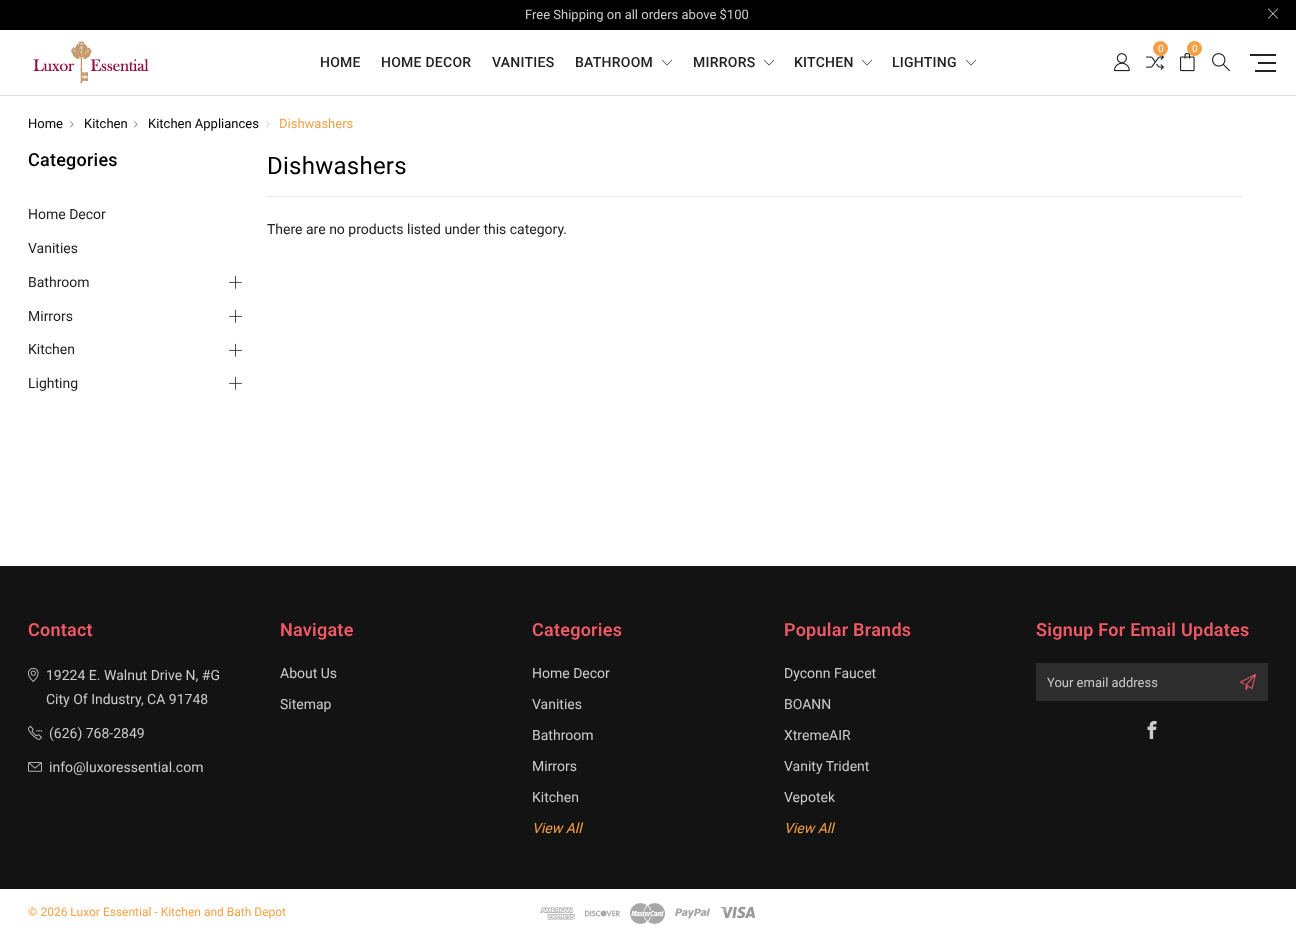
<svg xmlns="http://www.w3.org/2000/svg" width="1296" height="934">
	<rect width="100%" height="100%" fill="#FFFFFF" />
	<rect x="0" y="95" width="1296" height="1" fill="#E0E0E0" />
	<rect x="0" y="0" width="1296" height="30" fill="#000000" />
	<text x="525" y="19" font-family="Roboto" font-size="13" fill="#CCCCCC">Free Shipping on all orders above $100</text>
	<image x="1268" y="8" width="10" height="11" href="assets/img1.png" />
	<image x="33" y="41" width="116" height="43" href="assets/img2.png" />
	<image x="1146" y="55" width="18" height="15" href="assets/img3.png" />
	<circle cx="1160.5" cy="48.5" r="7.5" fill="#F5A047" />
	<text x="1158" y="52" font-family="Roboto" font-size="10" fill="#FFFFFF">0</text>
	<image x="1180" y="53" width="15" height="19" href="assets/img4.png" />
	<circle cx="1194.5" cy="48.5" r="7.5" fill="#F5A047" />
	<text x="1192" y="52" font-family="Roboto" font-size="10" fill="#FFFFFF">0</text>
	<image x="1114" y="53" width="16" height="19" href="assets/img5.png" />
	<image x="1212" y="53" width="18" height="19" href="assets/img6.png" />
	<rect x="1250" y="54" width="26" height="2" fill="#222222" />
	<rect x="1258" y="62" width="18" height="2" fill="#222222" />
	<rect x="1255" y="70" width="21" height="2" fill="#222222" />
	<g font-family="Roboto" font-size="14" font-weight="500" letter-spacing="0.25" fill="#222222">
		<text x="320" y="67">HOME</text>
		<text x="381" y="67">HOME DECOR</text>
		<text x="492" y="67">VANITIES</text>
		<text x="575" y="67">BATHROOM</text>
	</g>
	<image x="662" y="59" width="10" height="7" href="assets/img7.png" />
	<text x="693" y="67" font-family="Roboto" font-size="14" font-weight="500" letter-spacing="0.25" fill="#222222">MIRRORS</text>
	<image x="764" y="59" width="10" height="7" href="assets/img7.png" />
	<text x="794" y="67" font-family="Roboto" font-size="14" font-weight="500" letter-spacing="0.25" fill="#222222">KITCHEN</text>
	<image x="862" y="59" width="10" height="7" href="assets/img7.png" />
	<text x="892" y="67" font-family="Roboto" font-size="14" font-weight="500" letter-spacing="0.25" fill="#222222">LIGHTING</text>
	<image x="966" y="59" width="10" height="7" href="assets/img7.png" />
	<text x="28" y="128" font-family="Roboto" font-size="13" fill="#000000">Home</text>
	<image x="70" y="121" width="4" height="7" href="assets/img8.png" />
	<text x="84" y="128" font-family="Roboto" font-size="13" fill="#000000">Kitchen</text>
	<image x="134" y="121" width="4" height="7" href="assets/img8.png" />
	<text x="148" y="128" font-family="Roboto" font-size="13" fill="#000000">Kitchen Appliances</text>
	<image x="266" y="121" width="4" height="7" href="assets/img9.png" />
	<text x="279" y="128" font-family="Roboto" font-size="13" fill="#F5A047">Dishwashers</text>
	<text x="28" y="166" font-family="Roboto" font-size="18" font-weight="500" letter-spacing="0.25" fill="#000000">Categories</text>
	<g font-family="Roboto" font-size="14" fill="#222222">
		<text x="28" y="219">Home Decor</text>
		<text x="28" y="253">Vanities</text>
		<text x="28" y="287">Bathroom</text>
	</g>
	<image x="229" y="275" width="13" height="14" href="assets/img10.png" />
	<text x="28" y="321" font-family="Roboto" font-size="14" fill="#222222">Mirrors</text>
	<image x="229" y="309" width="13" height="14" href="assets/img10.png" />
	<text x="28" y="354" font-family="Roboto" font-size="14" fill="#222222">Kitchen</text>
	<image x="229" y="343" width="13" height="14" href="assets/img10.png" />
	<text x="28" y="388" font-family="Roboto" font-size="14" fill="#222222">Lighting</text>
	<image x="229" y="376" width="13" height="14" href="assets/img10.png" />
	<rect x="267" y="196" width="976" height="1" fill="#E8E8E8" />
	<text x="267" y="174" font-family="Roboto" font-size="24" letter-spacing="0.25" fill="#000000">Dishwashers</text>
	<text x="267" y="234" font-family="Roboto" font-size="14" fill="#222222">There are no products listed under this category.</text>
	<rect x="0" y="566" width="1296" height="323" fill="#131313" />
	<text x="28" y="636" font-family="Roboto" font-size="18" font-weight="600" letter-spacing="0.25" fill="#F05A66">Contact</text>
	<image x="28" y="667" width="11" height="15" href="assets/img11.png" />
	<g font-family="Roboto" font-size="14" fill="#CCCCCC">
		<text x="46" y="680">19224 E. Walnut Drive N, #G</text>
		<text x="46" y="704">City Of Industry, CA 91748</text>
	</g>
	<image x="28" y="725" width="14" height="15" href="assets/img12.png" />
	<text x="49" y="738" font-family="Roboto" font-size="14" fill="#CCCCCC">(626) 768-2849</text>
	<image x="28" y="762" width="14" height="10" href="assets/img13.png" />
	<text x="49" y="772" font-family="Roboto" font-size="14" fill="#CCCCCC">info@luxoressential.com</text>
	<text x="280" y="636" font-family="Roboto" font-size="18" font-weight="600" letter-spacing="0.25" fill="#F05A66">Navigate</text>
	<g font-family="Roboto" font-size="14" fill="#CCCCCC">
		<text x="280" y="678">About Us</text>
		<text x="280" y="709">Sitemap</text>
	</g>
	<text x="532" y="636" font-family="Roboto" font-size="18" font-weight="600" letter-spacing="0.25" fill="#F05A66">Categories</text>
	<g font-family="Roboto" font-size="14" fill="#CCCCCC">
		<text x="532" y="678">Home Decor</text>
		<text x="532" y="709">Vanities</text>
		<text x="532" y="740">Bathroom</text>
		<text x="532" y="771">Mirrors</text>
		<text x="532" y="802">Kitchen</text>
	</g>
	<text x="532" y="833" font-family="Roboto" font-size="14" font-style="italic" fill="#F5A047">View All</text>
	<text x="784" y="636" font-family="Roboto" font-size="18" font-weight="600" letter-spacing="0.25" fill="#F05A66">Popular Brands</text>
	<g font-family="Roboto" font-size="14" fill="#CCCCCC">
		<text x="784" y="678">Dyconn Faucet</text>
		<text x="784" y="709">BOANN</text>
		<text x="784" y="740">XtremeAIR</text>
		<text x="784" y="771">Vanity Trident</text>
		<text x="784" y="802">Vepotek</text>
	</g>
	<text x="784" y="833" font-family="Roboto" font-size="14" font-style="italic" fill="#F5A047">View All</text>
	<text x="1036" y="636" font-family="Roboto" font-size="18" font-weight="600" letter-spacing="0.25" fill="#F05A66">Signup For Email Updates</text>
	<rect x="1036" y="663" width="232" height="38" fill="#2D2D2D" />
	<text x="1047" y="687" font-family="Roboto" font-size="13" fill="#CCCCCC">Your email address</text>
	<image x="1240" y="674" width="16" height="16" href="assets/img14.png" />
	<image x="1147" y="721" width="10" height="18" href="assets/img15.png" />
	<text x="28" y="916" font-family="Roboto" font-size="12" fill="#F5A047">© 2026 Luxor Essential - Kitchen and Bath Depot</text>
	<image x="540" y="907" width="35" height="13" href="assets/img16.png" />
	<image x="585" y="910" width="35" height="7" href="assets/img17.png" />
	<image x="630" y="903" width="35" height="21" href="assets/img18.png" />
	<image x="675" y="908" width="35" height="11" href="assets/img19.png" />
	<image x="720" y="906" width="35" height="13" href="assets/img20.png" />
</svg>
